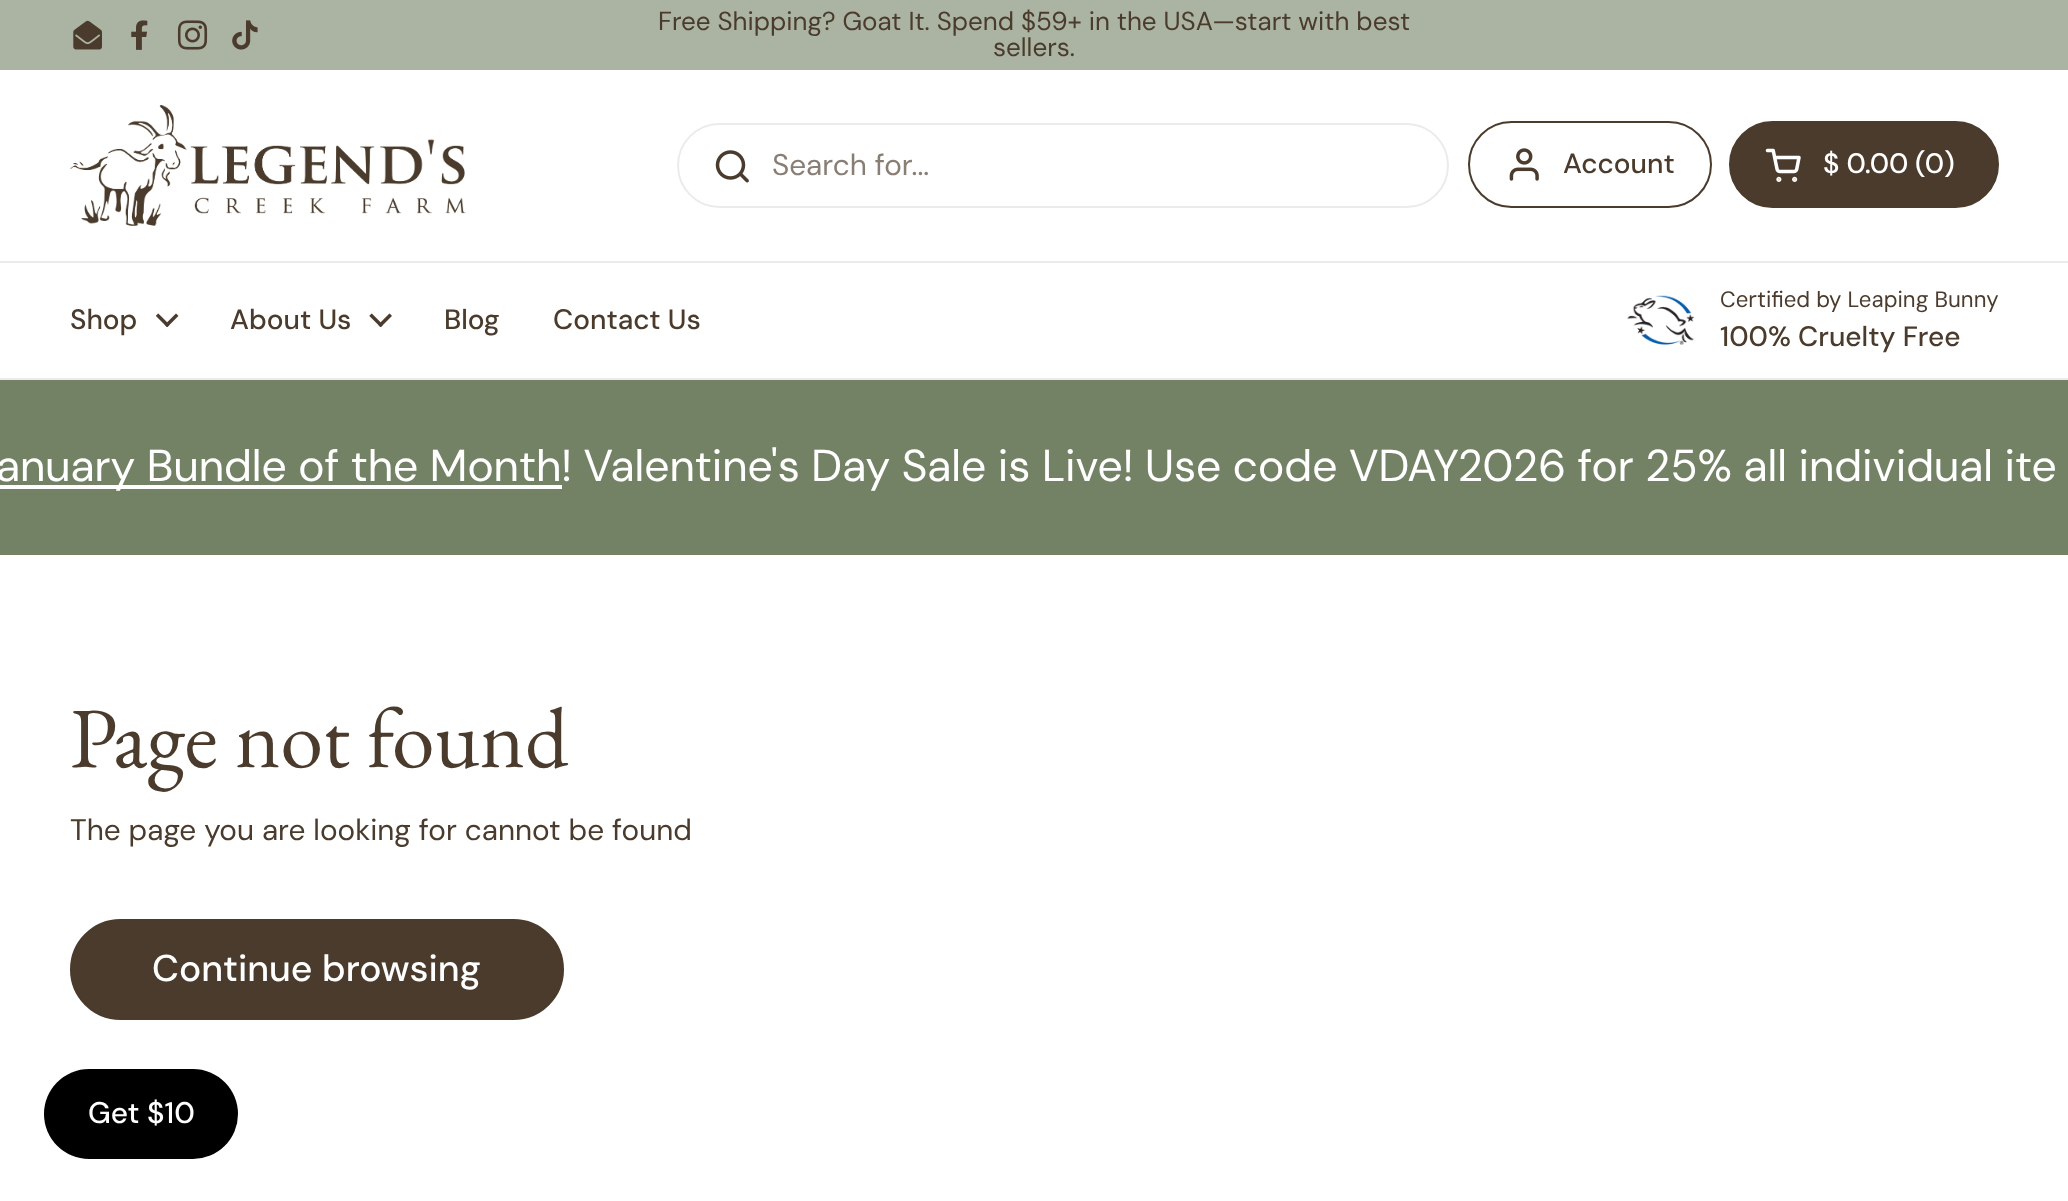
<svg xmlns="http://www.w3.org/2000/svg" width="2068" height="1201">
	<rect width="100%" height="100%" fill="#FFFFFF" />
	<rect x="0" y="0" width="2068" height="70" fill="#ABB4A2" />
	<image x="73" y="20" width="29" height="30" href="assets/img1.png" />
	<image x="131" y="20" width="17" height="30" href="assets/img2.png" />
	<image x="177" y="20" width="31" height="30" href="assets/img3.png" />
	<image x="232" y="20" width="26" height="30" href="assets/img4.png" />
	<g font-family="DM Sans" font-size="26" fill="#4A3B2C">
		<text x="658" y="30">Free Shipping? Goat It. Spend $59+ in the USA—start with best</text>
		<text x="993" y="56">sellers.</text>
	</g>
	<rect x="0" y="261" width="2068" height="2" fill="#EDEBEA" />
	<image x="70" y="105" width="396" height="121" href="assets/img5.png" />
	<rect x="678" y="124" width="770" height="83" rx="41.5" fill="none" stroke="#EDEBEA" stroke-width="2" />
	<image x="715" y="150" width="34" height="33" href="assets/img6.png" />
	<text x="772" y="175" font-family="'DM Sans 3'" font-size="29.75" fill="#887E74">Search for...</text>
	<rect x="1469" y="122" width="242" height="85" rx="42.5" fill="none" stroke="#4A3B2C" stroke-width="2" />
	<image x="1509" y="148" width="30" height="33" href="assets/img7.png" />
	<text x="1563" y="173" font-family="'DM Sans 3'" font-size="28" font-weight="500" fill="#4A3B2C">Account</text>
	<rect x="1730" y="122" width="268" height="85" rx="42.5" fill="#4A3B2C" stroke="#4A3B2C" stroke-width="2" />
	<image x="1765" y="148" width="36" height="34" href="assets/img8.png" />
	<g font-family="'DM Sans 3'" font-size="28" font-weight="500" fill="#FFFFFF">
		<text x="1823" y="173">$ 0.00</text>
		<text x="1915" y="173">(0</text>
		<text x="1944" y="173">)</text>
	</g>
	<rect x="0" y="378" width="2068" height="2" fill="#EDEBEA" />
	<text x="70" y="329" font-family="'DM Sans 3'" font-size="28" font-weight="500" fill="#4A3B2C">Shop</text>
	<image x="156" y="313" width="23" height="14" href="assets/img9.png" />
	<text x="230" y="329" font-family="'DM Sans 3'" font-size="28" font-weight="500" fill="#4A3B2C">About Us</text>
	<image x="369" y="313" width="23" height="14" href="assets/img10.png" />
	<g font-family="'DM Sans 3'" font-size="28" font-weight="500" fill="#4A3B2C">
		<text x="444" y="329">Blog</text>
		<text x="553" y="329">Contact Us</text>
	</g>
	<image x="1627" y="295" width="67" height="50" href="assets/img11.png" />
	<text x="1720" y="307" font-family="'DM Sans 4'" font-size="22.25" fill="#4A3B2C">Certified by Leaping Bunny</text>
	<text x="1720" y="346" font-family="'DM Sans 3'" font-size="28" font-weight="500" fill="#4A3B2C">100% Cruelty Free</text>
	<rect x="0" y="380" width="2068" height="175" fill="#738264" />
	<rect x="0" y="485" width="562" height="4" fill="#FFFFFF" />
	<text x="-4" y="481" font-family="'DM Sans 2'" font-size="44.6" fill="#FFFFFF">anuary Bundle of the Month! Valentine's Day Sale is Live! Use code VDAY2026 for 25% all individual ite</text>
	<text x="70" y="767" font-family="EB Garamond" font-size="85.75" fill="#4A3B2C">Page not found</text>
	<text x="70" y="840" font-family="'DM Sans 3'" font-size="29.75" fill="#4A3B2C">The page you are looking for cannot be found</text>
	<rect x="71" y="920" width="492" height="99" rx="49.5" fill="#4A3B2C" stroke="#4A3B2C" stroke-width="2" />
	<text x="152" y="981" font-family="DM Sans" font-size="37.25" font-weight="500" fill="#FFFFFF">Continue browsing</text>
	<rect x="44" y="1069" width="194" height="90" rx="45" fill="#000000" />
	<text x="88" y="1123" font-family="'DM Sans 2'" font-size="29.75" font-weight="500" fill="#FFFFFF">Get $10</text>
</svg>
